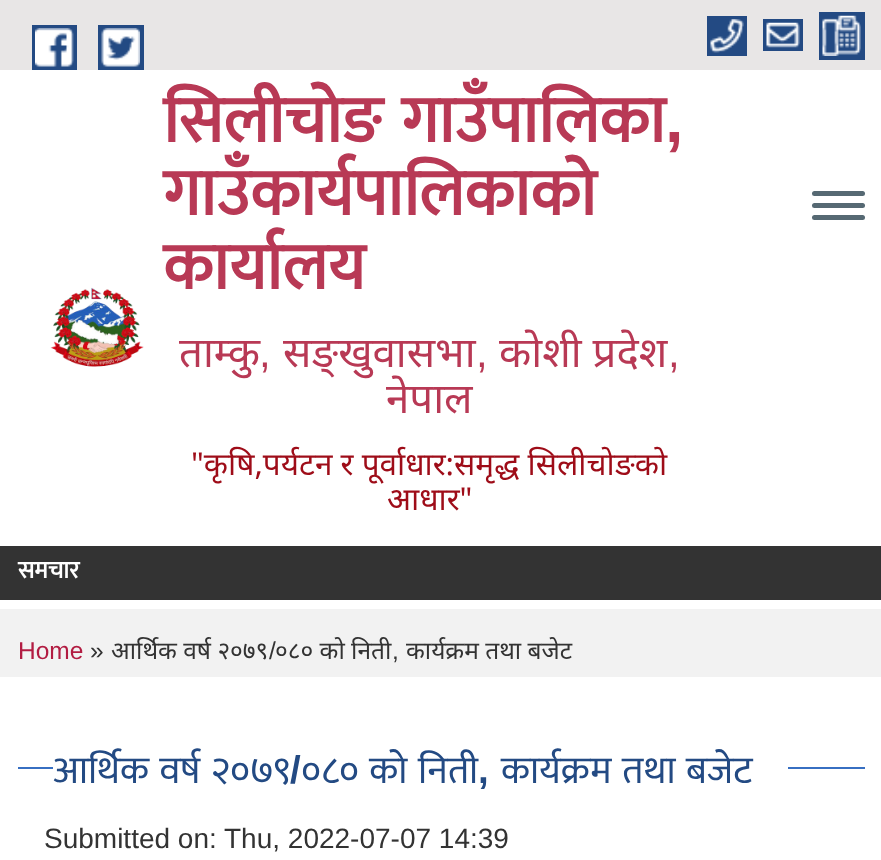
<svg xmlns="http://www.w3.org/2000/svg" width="881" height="860">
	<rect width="100%" height="100%" fill="#FFFFFF" />
	<rect x="0" y="0" width="881" height="70" fill="#E8E6E6" />
	<rect x="32" y="25" width="45" height="45" fill="#234A83" />
	<rect x="98" y="25" width="46" height="45" fill="#234A83" />
	<image x="35" y="28" width="39" height="39" href="assets/img1.png" />
	<image x="101" y="28" width="39" height="39" href="assets/img2.png" />
	<rect x="819" y="12" width="46" height="48" fill="#234A83" />
	<rect x="707" y="16" width="40" height="40" fill="#234A83" />
	<image x="822" y="15" width="39" height="41" href="assets/img3.png" />
	<image x="710" y="19" width="34" height="34" href="assets/img4.png" />
	<rect x="763" y="19" width="40" height="32" fill="#234A83" />
	<image x="766" y="22" width="34" height="26" href="assets/img5.png" />
	<image x="50" y="287" width="94" height="80" href="assets/img6.png" />
	<text x="163" y="142" word-spacing="4" font-family="Mukta" font-size="66.5" font-weight="700" fill="#B83955">सिलीचोङ गाउँपालिका</text>
	<text x="665" y="142" font-family="Liberation Sans" font-size="66.5" font-weight="700" fill="#B83955">,</text>
	<g font-family="Mukta" font-size="66.5" font-weight="700" fill="#B83955">
		<text x="163" y="215">गाउँकार्यपालिकाको</text>
		<text x="163" y="289">कार्यालय</text>
	</g>
	<text x="179" y="367" font-family="Noto Sans" font-size="42" fill="#B83955">ताम्कु</text>
	<text x="259" y="367" font-family="Liberation Sans" font-size="42" fill="#B83955">,</text>
	<text x="283" y="367" font-family="Noto Sans" font-size="42" fill="#B83955">सङ्‍खुवासभा</text>
	<text x="476" y="367" font-family="Liberation Sans" font-size="42" fill="#B83955">,</text>
	<text x="499" y="367" font-family="Noto Sans" font-size="42" fill="#B83955">कोशी प्रदेश</text>
	<text x="668" y="367" font-family="Liberation Sans" font-size="42" fill="#B83955">,</text>
	<text x="386" y="413" font-family="Noto Sans" font-size="42" fill="#B83955">नेपाल</text>
	<g font-family="Noto Sans" font-size="31.5" fill="#9E0C18">
		<text x="191" y="475">"कृषि,पर्यटन र पूर्वाधार:समृद्ध सिलीचोङको</text>
		<text x="387" y="510">आधार"</text>
	</g>
	<rect x="812" y="191" width="53" height="5" rx="2.5" fill="#566973" />
	<rect x="812" y="203" width="53" height="5" rx="2.5" fill="#566973" />
	<rect x="812" y="215" width="53" height="5" rx="2.5" fill="#566973" />
	<rect x="0" y="546" width="881" height="54" fill="#333333" />
	<text x="18" y="578" font-family="Mukta" font-size="24.5" font-weight="700" fill="#FFFFFF">समचार</text>
	<rect x="0" y="609" width="881" height="68" fill="#F2F2F2" />
	<text x="18" y="659" font-family="Liberation Sans" font-size="24.5" fill="#B21C42">Home</text>
	<text x="90" y="659" font-family="Liberation Sans" font-size="24.5" fill="#333333">»</text>
	<text x="111" y="659" font-family="Noto Sans" font-size="24.5" fill="#333333">आर्थिक वर्ष २०७९</text>
	<text x="269" y="659" font-family="Liberation Sans" font-size="24.5" fill="#333333">/</text>
	<g font-family="Noto Sans" font-size="24.5" fill="#333333">
		<text x="275" y="659">०८० को निती</text>
		<text x="406" y="659">कार्यक्रम तथा बजेट</text>
	</g>
	<text x="392" y="659" font-family="Liberation Sans" font-size="24.5" fill="#333333">,</text>
	<rect x="18" y="767" width="847" height="2" fill="#376FC2" />
	<rect x="53" y="767" width="735" height="2" fill="#FFFFFF" />
	<text x="53" y="783" word-spacing="2" font-family="Mukta" font-size="38.5" fill="#234A83">आर्थिक वर्ष २०७९</text>
	<text x="290" y="783" font-family="Liberation Sans" font-size="38.5" font-weight="700" fill="#234A83">/</text>
	<text x="301" y="783" word-spacing="2" font-family="Mukta" font-size="38.5" fill="#234A83">०८० को निती</text>
	<text x="478" y="783" font-family="Liberation Sans" font-size="38.5" font-weight="700" fill="#234A83">,</text>
	<text x="501" y="783" word-spacing="2" font-family="Mukta" font-size="38.5" fill="#234A83">कार्यक्रम तथा बजेट</text>
	<g font-family="Liberation Sans" font-size="28" fill="#333333">
		<text x="44" y="848">Submitted on:</text>
		<text x="224" y="848">Thu, 2022-07-07 14:39</text>
	</g>
</svg>
